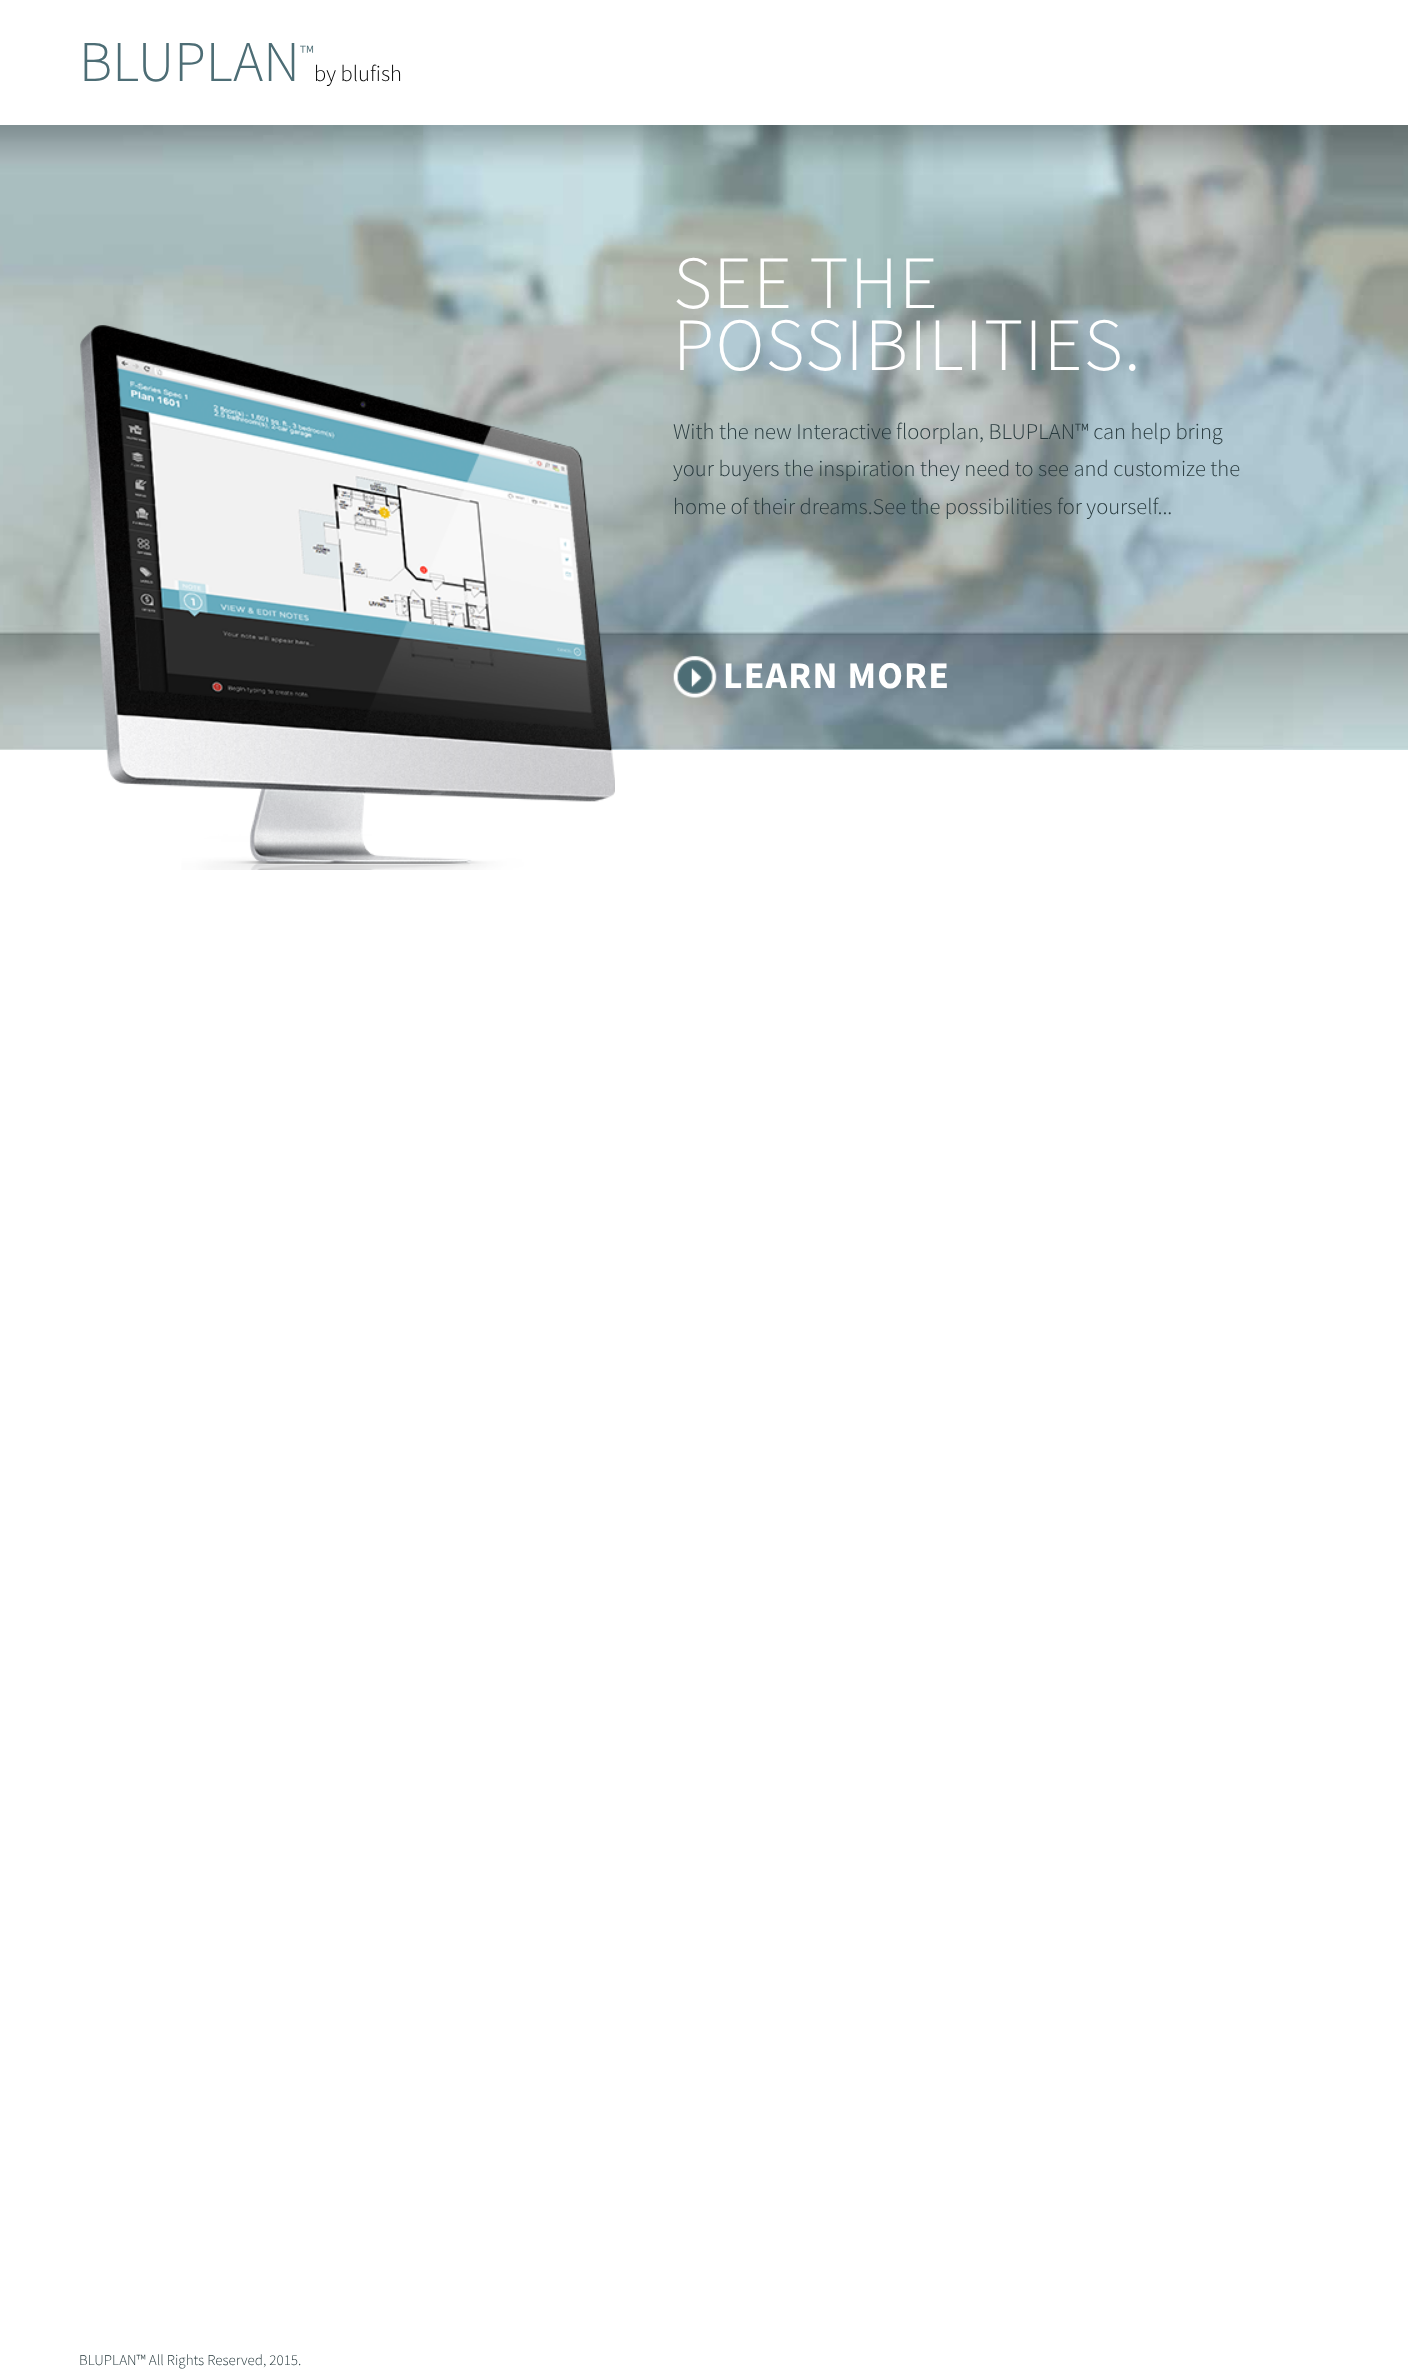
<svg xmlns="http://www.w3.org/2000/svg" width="1408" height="2375">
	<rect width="100%" height="100%" fill="#FFFFFF" />
	<text x="79" y="81" font-family="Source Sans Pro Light" font-size="57.5" font-weight="300" fill="#4D6D75">BLUPLAN</text>
	<text x="300" y="61" font-family="Source Sans Pro Light" font-size="22.5" font-weight="300" fill="#4D6D75">™</text>
	<text x="314" y="81" font-family="Source Sans Pro Light" font-size="22.5" font-weight="300" fill="#000000">by blufish</text>
	<image x="0" y="125" width="1408" height="625" href="assets/img1.png" />
	<image x="80" y="325" width="535" height="545" href="assets/img2.png" />
	<g font-family="Source Sans Pro Light" font-size="75" font-weight="300" letter-spacing="1.25" fill="#FFFFFF">
		<text x="673" y="308">SEE THE</text>
		<text x="673" y="370">POSSIBILITIES.</text>
	</g>
	<g font-family="Source Sans Pro Light" font-size="22.5" font-weight="300" fill="#283A3E">
		<text x="673" y="439">With the new Interactive floorplan, BLUPLAN™ can help bring</text>
		<text x="673" y="476">your buyers the inspiration they need to see and customize the</text>
		<text x="673" y="514">home of their dreams.See the possibilities for yourself...</text>
	</g>
	<image x="673" y="656" width="44" height="42" href="assets/img3.png" />
	<text x="723" y="688" font-family="Source Sans Pro" font-size="37.5" font-weight="700" letter-spacing="1.25" fill="#FFFFFF">LEARN MORE</text>
	<text x="79" y="2365" font-family="Source Sans Pro Light" font-size="15" font-weight="300" fill="#283A3E">BLUPLAN™ All Rights Reserved, 2015.</text>
</svg>
